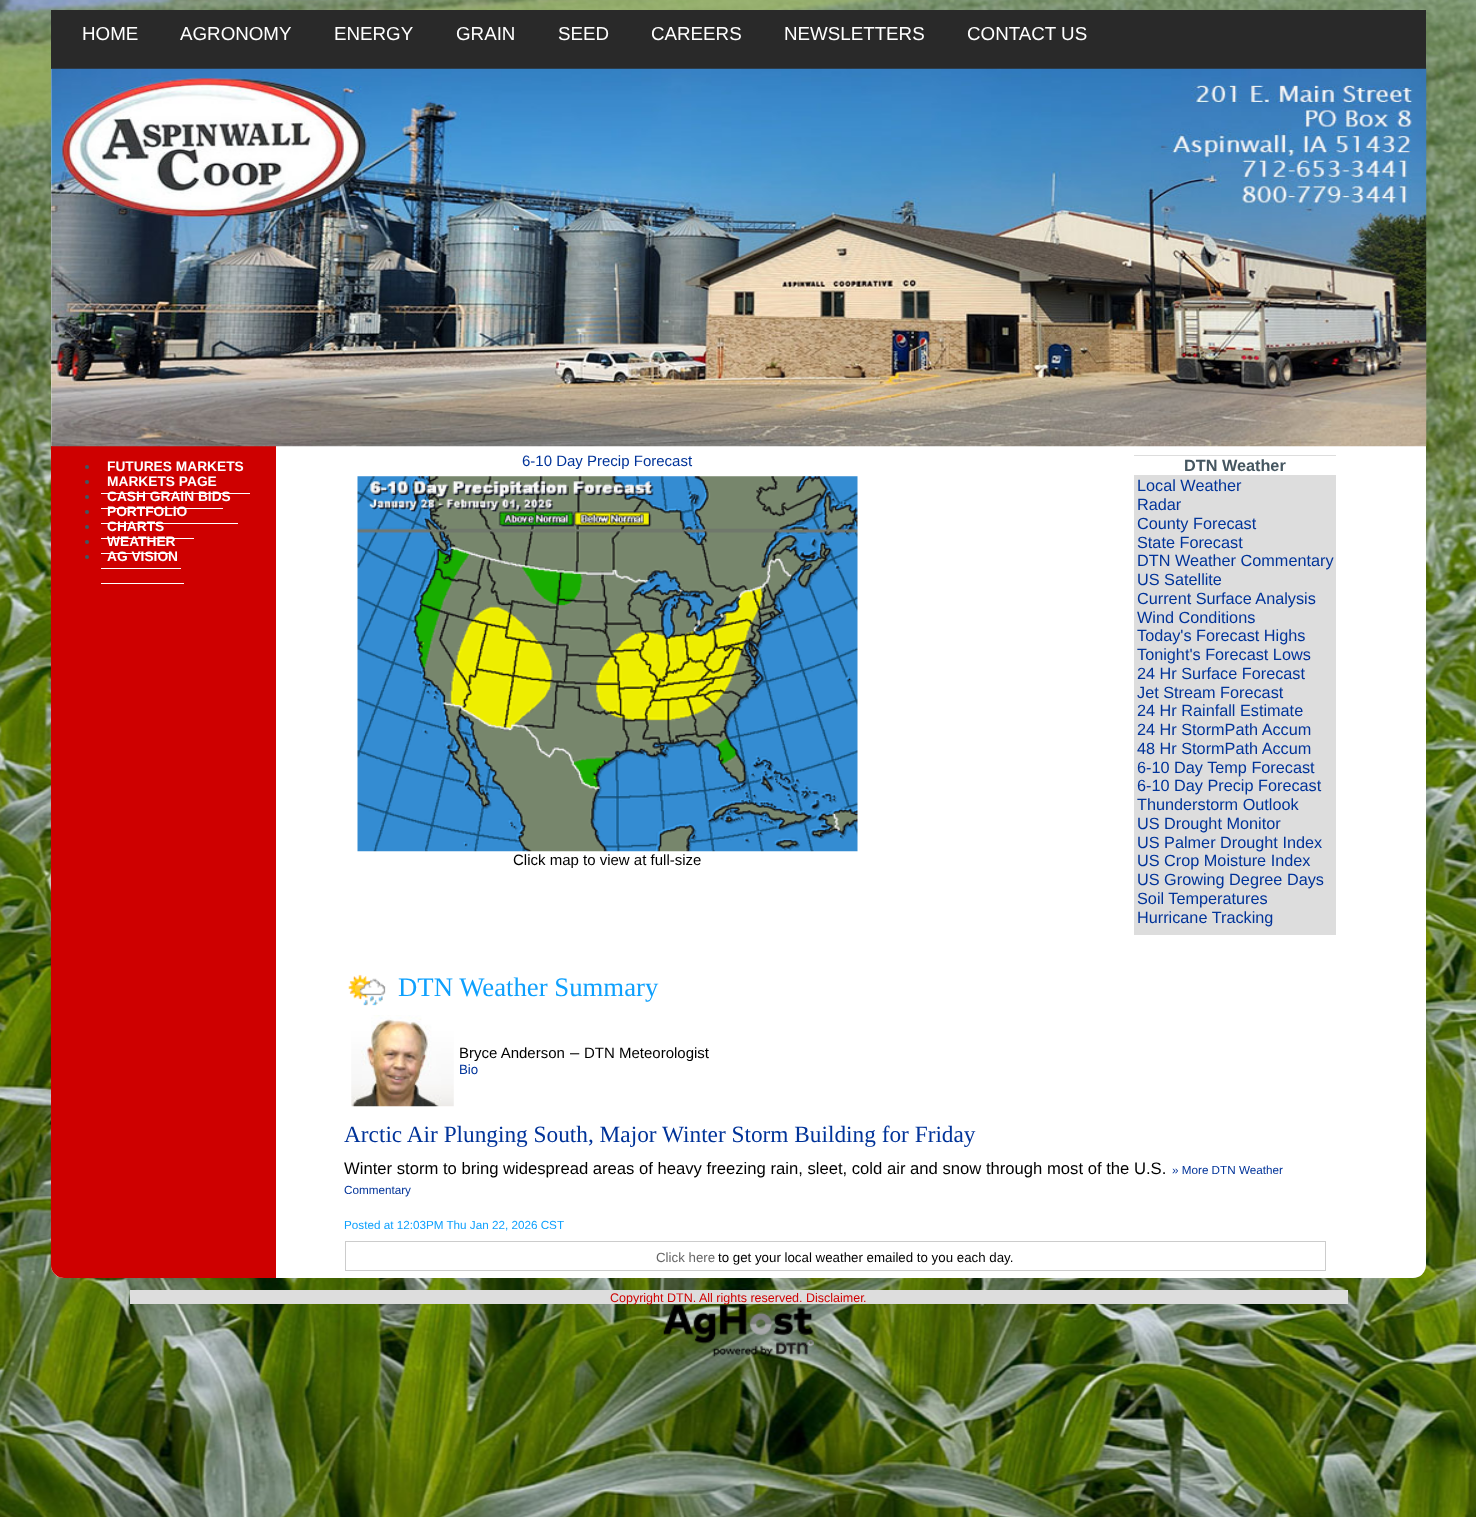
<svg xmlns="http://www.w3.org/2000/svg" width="1476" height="1517">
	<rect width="100%" height="100%" fill="#FFFFFF" />
	<image x="0" y="0" width="1476" height="1517" href="assets/img1.png" />
	<rect x="51" y="10" width="1375" height="1268" rx="13" fill="#FFFFFF" />
	<rect x="51" y="10" width="1375" height="59" fill="#292929" />
	<g font-family="Liberation Sans" font-size="18.75" fill="#FFFFFF">
		<text x="82" y="40">HOME</text>
		<text x="180" y="40">AGRONOMY</text>
		<text x="334" y="40">ENERGY</text>
		<text x="456" y="40">GRAIN</text>
		<text x="558" y="40">SEED</text>
		<text x="651" y="40">CAREERS</text>
		<text x="784" y="40">NEWSLETTERS</text>
		<text x="967" y="40">CONTACT US</text>
	</g>
	<path d="M51 446H276V1278H64C57 1278 51 1272 51 1265Z" fill="#CE0000" />
	<image x="51" y="68" width="1376" height="379" href="assets/img2.png" />
	<circle cx="87" cy="467" r="2" fill="#455660" />
	<text x="107" y="471" font-family="Liberation Sans" font-size="13.75" font-weight="700" fill="#FFFFFF">FUTURES MARKETS</text>
	<rect x="101" y="493" width="149" height="1" fill="#FFFFFF" />
	<circle cx="87" cy="482" r="2" fill="#455660" />
	<text x="107" y="486" font-family="Liberation Sans" font-size="13.75" font-weight="700" fill="#FFFFFF">MARKETS PAGE</text>
	<rect x="101" y="508" width="122" height="1" fill="#FFFFFF" />
	<circle cx="87" cy="497" r="2" fill="#455660" />
	<text x="107" y="501" font-family="Liberation Sans" font-size="13.75" font-weight="700" fill="#FFFFFF">CASH GRAIN BIDS</text>
	<rect x="101" y="523" width="137" height="1" fill="#FFFFFF" />
	<circle cx="87" cy="512" r="2" fill="#455660" />
	<text x="107" y="516" font-family="Liberation Sans" font-size="13.75" font-weight="700" fill="#FFFFFF">PORTFOLIO</text>
	<rect x="101" y="538" width="93" height="1" fill="#FFFFFF" />
	<circle cx="87" cy="527" r="2" fill="#455660" />
	<text x="107" y="531" font-family="Liberation Sans" font-size="13.75" font-weight="700" fill="#FFFFFF">CHARTS</text>
	<rect x="101" y="553" width="69" height="1" fill="#FFFFFF" />
	<circle cx="87" cy="542" r="2" fill="#455660" />
	<text x="107" y="546" font-family="Liberation Sans" font-size="13.75" font-weight="700" fill="#FFFFFF">WEATHER</text>
	<rect x="101" y="568" width="80" height="1" fill="#FFFFFF" />
	<circle cx="87" cy="557" r="2" fill="#455660" />
	<text x="107" y="561" font-family="Liberation Sans" font-size="13.75" font-weight="700" fill="#FFFFFF">AG VISION</text>
	<rect x="101" y="583" width="83" height="1" fill="#FFFFFF" />
	<text x="522" y="466" font-family="Liberation Sans" font-size="15" fill="#003399">6-10 Day Precip Forecast</text>
	<image x="357" y="476" width="501" height="376" href="assets/img3.png" />
	<text x="513" y="865" font-family="Liberation Sans" font-size="15" fill="#000000">Click map to view at full-size</text>
	<rect x="1134" y="455" width="202" height="480" fill="#DDDDDD" />
	<rect x="1134" y="456" width="202" height="19" fill="#FFFFFF" />
	<text x="1184" y="471" font-family="Liberation Sans" font-size="16.25" font-weight="700" fill="#455660">DTN Weather</text>
	<g font-family="Liberation Sans" font-size="16.25" fill="#003399">
		<text x="1137" y="491">Local Weather</text>
		<text x="1137" y="510">Radar</text>
		<text x="1137" y="529">County Forecast</text>
		<text x="1137" y="548">State Forecast</text>
		<text x="1137" y="566">DTN Weather Commentary</text>
		<text x="1137" y="585">US Satellite</text>
		<text x="1137" y="604">Current Surface Analysis</text>
		<text x="1137" y="623">Wind Conditions</text>
		<text x="1137" y="641">Today's Forecast Highs</text>
		<text x="1137" y="660">Tonight's Forecast Lows</text>
		<text x="1137" y="679">24 Hr Surface Forecast</text>
		<text x="1137" y="698">Jet Stream Forecast</text>
		<text x="1137" y="716">24 Hr Rainfall Estimate</text>
		<text x="1137" y="735">24 Hr StormPath Accum</text>
		<text x="1137" y="754">48 Hr StormPath Accum</text>
		<text x="1137" y="773">6-10 Day Temp Forecast</text>
		<text x="1137" y="791">6-10 Day Precip Forecast</text>
		<text x="1137" y="810">Thunderstorm Outlook</text>
		<text x="1137" y="829">US Drought Monitor</text>
		<text x="1137" y="848">US Palmer Drought Index</text>
		<text x="1137" y="866">US Crop Moisture Index</text>
		<text x="1137" y="885">US Growing Degree Days</text>
		<text x="1137" y="904">Soil Temperatures</text>
		<text x="1137" y="923">Hurricane Tracking</text>
	</g>
	<image x="348" y="974" width="38" height="32" href="assets/img4.png" />
	<text x="398" y="996" font-family="Liberation Serif" font-size="26.75" fill="#0EA0FD">DTN Weather Summary</text>
	<image x="351" y="1015" width="103" height="92" href="assets/img5.png" />
	<text x="459" y="1058" font-family="Liberation Sans" font-size="15" fill="#000000">Bryce Anderson</text>
	<text x="570" y="1058" font-family="Liberation Sans" font-size="16.65" fill="#000000">–</text>
	<text x="584" y="1058" font-family="Liberation Sans" font-size="15" fill="#000000">DTN Meteorologist</text>
	<text x="459" y="1074" font-family="Liberation Sans" font-size="13.3" fill="#003399">Bio</text>
	<text x="344" y="1142" font-family="Liberation Serif" font-size="23.3" fill="#003399">Arctic Air Plunging South, Major Winter Storm Building for Friday</text>
	<text x="344" y="1174" font-family="Liberation Sans" font-size="16.65" fill="#000000">Winter storm to bring widespread areas of heavy freezing rain, sleet, cold air and snow through most of the U.S.</text>
	<g font-family="Liberation Sans" font-size="11.7" fill="#003399">
		<text x="1172" y="1174">» More DTN Weather</text>
		<text x="344" y="1194">Commentary</text>
	</g>
	<text x="344" y="1229" font-family="Liberation Sans" font-size="11.7" fill="#0EA0FD">Posted at 12:03PM Thu Jan 22, 2026 CST</text>
	<rect x="345.5" y="1241.5" width="980" height="29" fill="none" stroke="#CCCCCC" />
	<text x="656" y="1262" font-family="Liberation Sans" font-size="13.3" fill="#666666">Click here</text>
	<text x="718" y="1262" font-family="Liberation Sans" font-size="13.3" fill="#000000">to get your local weather emailed to you each day.</text>
	<rect x="130" y="1290" width="1218" height="14" fill="#DDDDDD" />
	<g font-family="Liberation Sans" font-size="12.5" fill="#CE0000">
		<text x="610" y="1302">Copyright DTN.</text>
		<text x="699" y="1302">All rights reserved. Disclaimer</text>
		<text x="863" y="1302">.</text>
	</g>
	<image x="663" y="1304" width="151" height="53" href="assets/img6.png" />
</svg>
